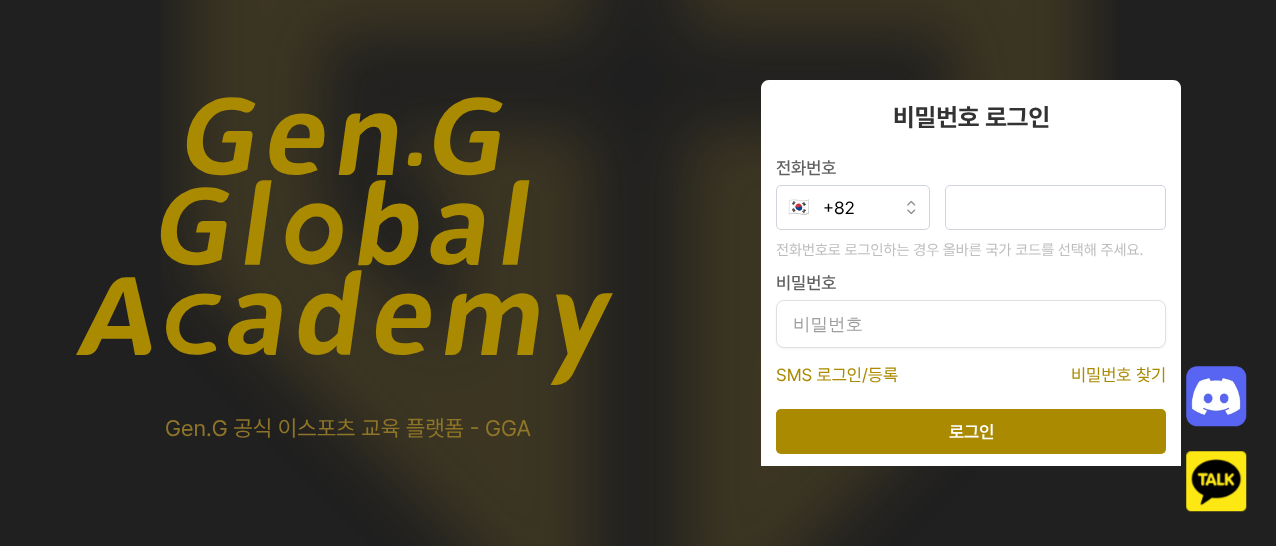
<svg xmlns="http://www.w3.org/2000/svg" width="1276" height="546">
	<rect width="100%" height="100%" fill="#202020" />
	<image x="161" y="0" width="955" height="546" href="assets/img1.png" />
	<g font-family="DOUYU" font-size="90" letter-spacing="4.5" fill="#AA8A00">
		<text x="183" y="166">Gen.G</text>
		<text x="157" y="256">Global</text>
		<text x="81" y="346">Academy</text>
	</g>
	<text x="165" y="436" font-family="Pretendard" font-size="22.5" fill="#8F7527">Gen.G 공식 이스포츠 교육 플랫폼 - GGA</text>
	<path d="M769 80H1173C1177.5 80 1181 83.5 1181 88V466H761V88C761 83.5 764.5 80 769 80Z" fill="#FFFFFF" />
	<text x="893" y="126" font-family="Pretendard" font-size="25" font-weight="700" fill="#333333">비밀번호 로그인</text>
	<text x="776" y="174" font-family="Pretendard" font-size="17.5" font-weight="500" fill="#616161">전화번호</text>
	<rect x="776.5" y="185.5" width="153" height="44" rx="4.5" fill="none" stroke="#CED4DA" />
	<text x="788" y="213" font-family="Noto Color Emoji" font-size="17.5" fill="#ADB5BD">🇰🇷</text>
	<text x="823" y="214" font-family="Pretendard" font-size="17.5" fill="#000000">+82</text>
	<image x="907" y="200" width="9" height="15" href="assets/img2.png" />
	<rect x="945.5" y="185.5" width="220" height="44" rx="4.5" fill="none" stroke="#CED4DA" />
	<text x="776" y="255" font-family="Pretendard" font-size="15" fill="#BDBDBD">전화번호로 로그인하는 경우 올바른 국가 코드를 선택해 주세요.</text>
	<text x="776" y="289" font-family="Pretendard" font-size="17.5" font-weight="500" fill="#616161">비밀번호</text>
	<rect x="776" y="301" width="390" height="48" rx="8" fill="#000000" fill-opacity="0.05" filter="blur(1px)" />
	<rect x="776.5" y="300.5" width="389" height="47" rx="7.5" fill="#FFFFFF" stroke="#E0E0E0" />
	<text x="793" y="330" font-family="WenQuanYi Zen Hei" font-size="17.5" font-weight="500" fill="#9E9E9E">비밀번호</text>
	<g font-family="Pretendard" font-size="17.5" fill="#AA8A00">
		<text x="776" y="381">SMS 로그인/등록</text>
		<text x="1071" y="381">비밀번호 찾기</text>
	</g>
	<rect x="776" y="409" width="390" height="45" rx="5" fill="#AA8A00" />
	<text x="949" y="438" font-family="Pretendard" font-size="17.5" font-weight="600" fill="#FFFFFF">로그인</text>
	<image x="1186" y="366" width="61" height="61" href="assets/img3.png" />
	<image x="1186" y="451" width="61" height="61" href="assets/img4.png" />
</svg>
